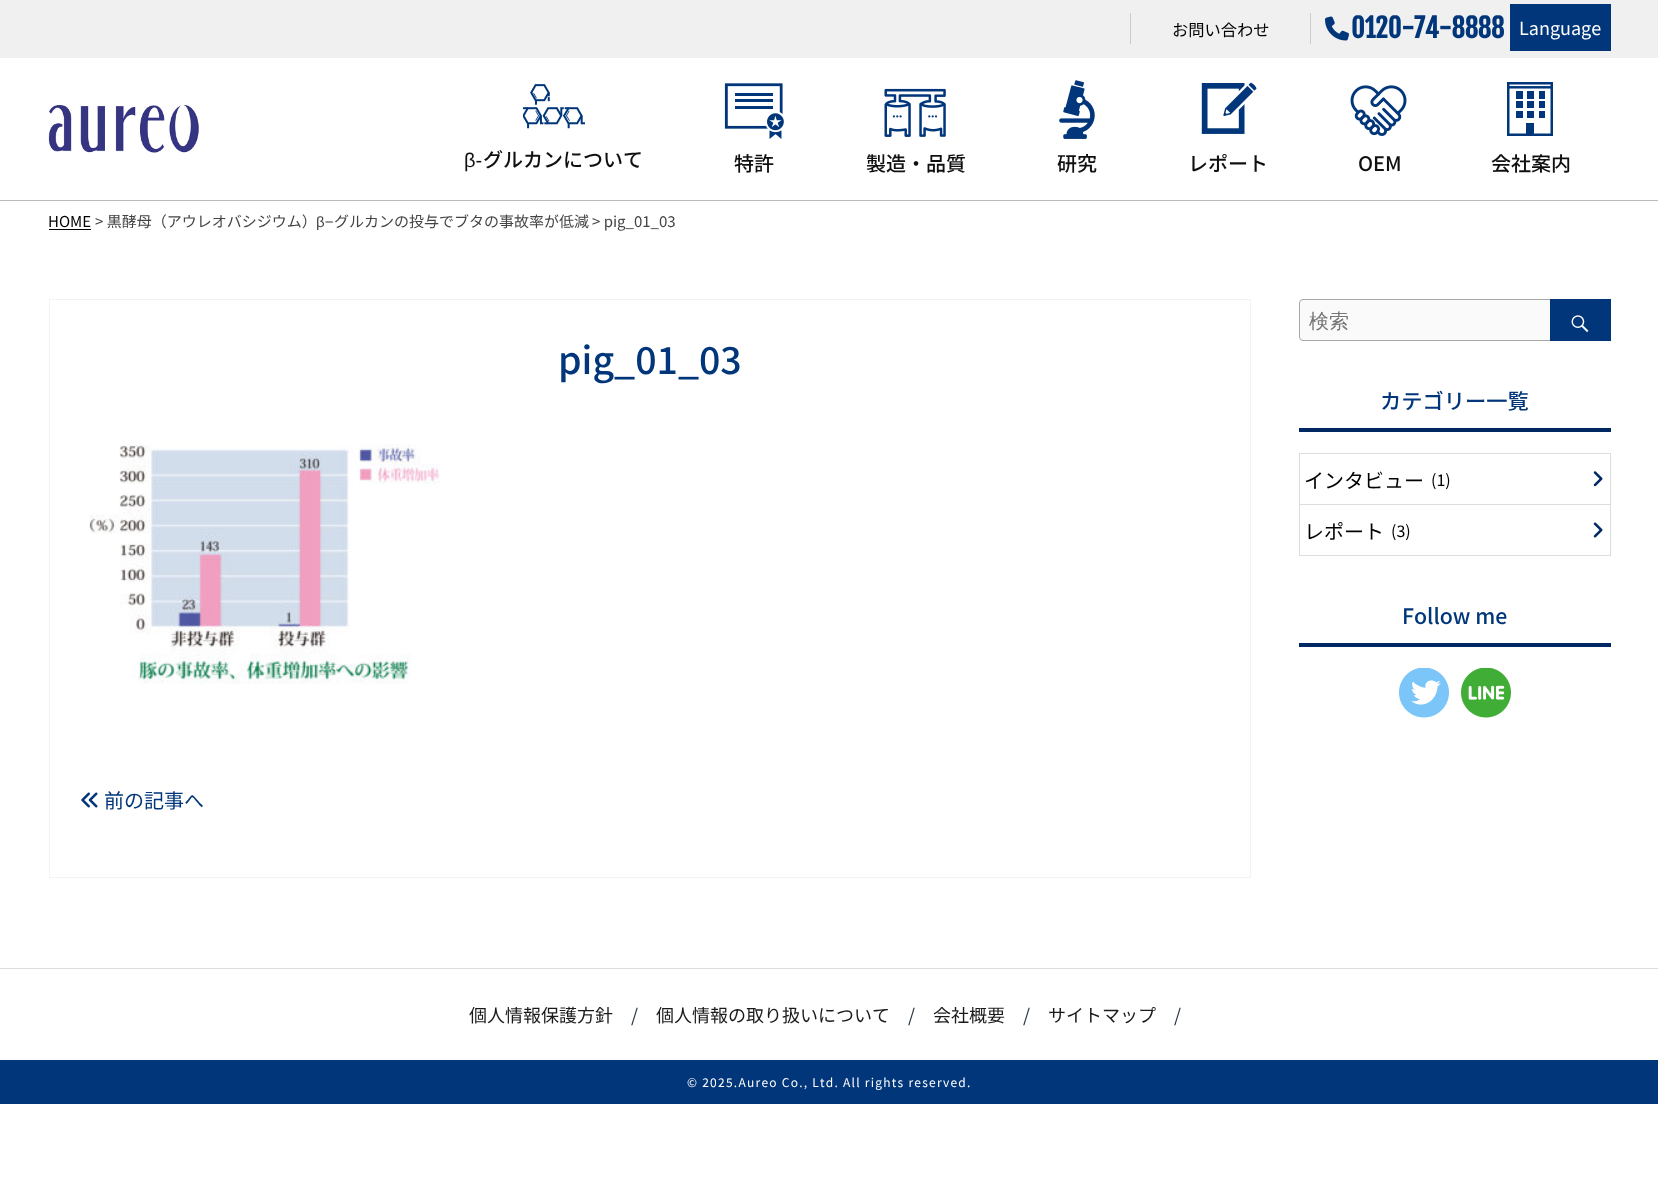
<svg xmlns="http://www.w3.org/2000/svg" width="1658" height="1183">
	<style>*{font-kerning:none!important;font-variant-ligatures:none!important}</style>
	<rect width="100%" height="100%" fill="#FFFFFF" />
	<rect x="0" y="200" width="1658" height="1" fill="#BBBBBB" />
	<rect x="0" y="0" width="1658" height="58" fill="#F0F0F0" />
	<rect x="1130" y="13" width="1" height="31" fill="#CCCCCC" />
	<rect x="1310" y="13" width="1" height="31" fill="#CCCCCC" />
	<text x="1172" y="36" font-family="Noto Sans JP" font-size="16.25" fill="#000000">お問い合わせ</text>
	<image x="1325" y="16" width="24" height="25" href="assets/img1.png" />
	<text x="1351" y="38" font-family="Fjalla One" font-size="26.25" font-weight="700" fill="#01367A">0120-74-8888</text>
	<rect x="1510" y="4" width="101" height="47" fill="#01367A" />
	<text x="1519" y="35" font-family="Noto Sans JP" font-size="18" fill="#FFFFFF">Language</text>
	<image x="48" y="105" width="151" height="48" href="assets/img2.png" />
	<image x="523" y="84" width="62" height="45" href="assets/img3.png" />
	<text x="464" y="167" font-family="Liberation Sans" font-size="20" fill="#101010">β-</text>
	<text x="483" y="167" font-family="Noto Sans JP" font-size="20" font-weight="500" fill="#101010">グルカンについて</text>
	<image x="724" y="83" width="60" height="56" href="assets/img4.png" />
	<text x="734" y="171" font-family="Noto Sans JP" font-size="20" font-weight="500" fill="#101010">特許</text>
	<image x="884" y="88" width="62" height="49" href="assets/img5.png" />
	<text x="866" y="171" font-family="Noto Sans JP" font-size="20" font-weight="500" fill="#101010">製造・品質</text>
	<image x="1059" y="80" width="36" height="59" href="assets/img6.png" />
	<text x="1057" y="171" font-family="Noto Sans JP" font-size="20" font-weight="500" fill="#101010">研究</text>
	<image x="1201" y="82" width="56" height="52" href="assets/img7.png" />
	<text x="1188" y="171" font-family="Noto Sans JP" font-size="20" font-weight="500" fill="#101010">レポート</text>
	<image x="1350" y="85" width="57" height="51" href="assets/img8.png" />
	<text x="1358" y="171" font-family="Noto Sans JP" font-size="20" font-weight="500" fill="#101010">OEM</text>
	<image x="1507" y="82" width="46" height="54" href="assets/img9.png" />
	<text x="1491" y="171" font-family="Noto Sans JP" font-size="20" font-weight="500" fill="#101010">会社案内</text>
	<text x="48" y="227" font-family="Noto Sans JP" font-size="15" fill="#000000">HOME</text>
	<rect x="49" y="229" width="42" height="1" fill="#000000" />
	<text x="95" y="227" font-family="Noto Sans JP" font-size="15" fill="#444444">&gt; 黒酵母（アウレオバシジウム）</text>
	<text x="316" y="227" font-family="Liberation Sans" font-size="15" fill="#444444">β−</text>
	<g font-family="Noto Sans JP" font-size="15" fill="#444444">
		<text x="334" y="227">グルカンの投与でブタの事故率が低減</text>
		<text x="592" y="227">&gt; pig_01_03</text>
	</g>
	<rect x="49.5" y="299.5" width="1201" height="578" fill="none" stroke="#F2F2F9" />
	<text x="558" y="374" font-family="Noto Sans JP" font-size="37.5" font-weight="500" fill="#01367A">pig_01_03</text>
	<image x="89" y="444" width="351" height="240" href="assets/img10.png" />
	<image x="81" y="792" width="17" height="16" href="assets/img11.png" />
	<text x="104" y="808" font-family="Noto Sans JP" font-size="20" fill="#01367A">前の記事へ</text>
	<rect x="1299.5" y="299.5" width="253" height="41" rx="3.5" fill="#FAFAFA" stroke="#A7A7A7" />
	<text x="1309" y="328" font-family="WenQuanYi Zen Hei" font-size="20" font-weight="500" fill="#757575">検索</text>
	<rect x="1550" y="299" width="61" height="42" fill="#01367A" />
	<image x="1571" y="315" width="18" height="18" href="assets/img12.png" />
	<rect x="1299" y="428" width="312" height="4" fill="#002863" />
	<text x="1380" y="409" font-family="Noto Sans JP" font-size="21.25" font-weight="500" fill="#01367A">カテゴリー一覧</text>
	<rect x="1299.5" y="453.5" width="311" height="51" fill="none" stroke="#DDDDDD" />
	<text x="1304" y="488" font-family="Noto Sans JP" font-size="20" fill="#000000">インタビュー</text>
	<text x="1431" y="486" font-family="Noto Sans JP" font-size="16" fill="#000000">(1)</text>
	<image x="1593" y="471" width="10" height="16" href="assets/img13.png" />
	<rect x="1610" y="505" width="1" height="51" fill="#DDDDDD" />
	<rect x="1299" y="555" width="312" height="1" fill="#DDDDDD" />
	<rect x="1299" y="505" width="1" height="51" fill="#DDDDDD" />
	<text x="1304" y="539" font-family="Noto Sans JP" font-size="20" fill="#000000">レポート</text>
	<text x="1391" y="537" font-family="Noto Sans JP" font-size="16" fill="#000000">(3)</text>
	<image x="1593" y="522" width="10" height="16" href="assets/img14.png" />
	<rect x="1299" y="643" width="312" height="4" fill="#002863" />
	<text x="1402" y="624" font-family="Noto Sans JP" font-size="21.25" font-weight="500" fill="#01367A">Follow me</text>
	<image x="1399" y="668" width="50" height="50" href="assets/img15.png" />
	<image x="1461" y="668" width="50" height="50" href="assets/img16.png" />
	<rect x="0" y="968" width="1658" height="1" fill="#DDDDDD" />
	<text x="469" y="1022" font-family="Noto Sans JP" font-size="18" fill="#1A1A1A">個人情報保護方針</text>
	<text x="631" y="1022" font-family="Noto Sans JP" font-size="18" fill="#293540">/</text>
	<text x="656" y="1022" font-family="Noto Sans JP" font-size="18" fill="#1A1A1A">個人情報の取り扱いについて</text>
	<text x="908" y="1022" font-family="Noto Sans JP" font-size="18" fill="#293540">/</text>
	<text x="933" y="1022" font-family="Noto Sans JP" font-size="18" fill="#1A1A1A">会社概要</text>
	<text x="1023" y="1022" font-family="Noto Sans JP" font-size="18" fill="#293540">/</text>
	<text x="1048" y="1022" font-family="Noto Sans JP" font-size="18" fill="#1A1A1A">サイトマップ</text>
	<text x="1174" y="1022" font-family="Noto Sans JP" font-size="18" fill="#293540">/</text>
	<rect x="0" y="1060" width="1658" height="44" fill="#01367A" />
	<text x="687" y="1087" font-family="Noto Sans JP" font-size="12" letter-spacing="1.25" fill="#FFFFFF">© 2025.Aureo Co., Ltd. All rights reserved.</text>
</svg>
